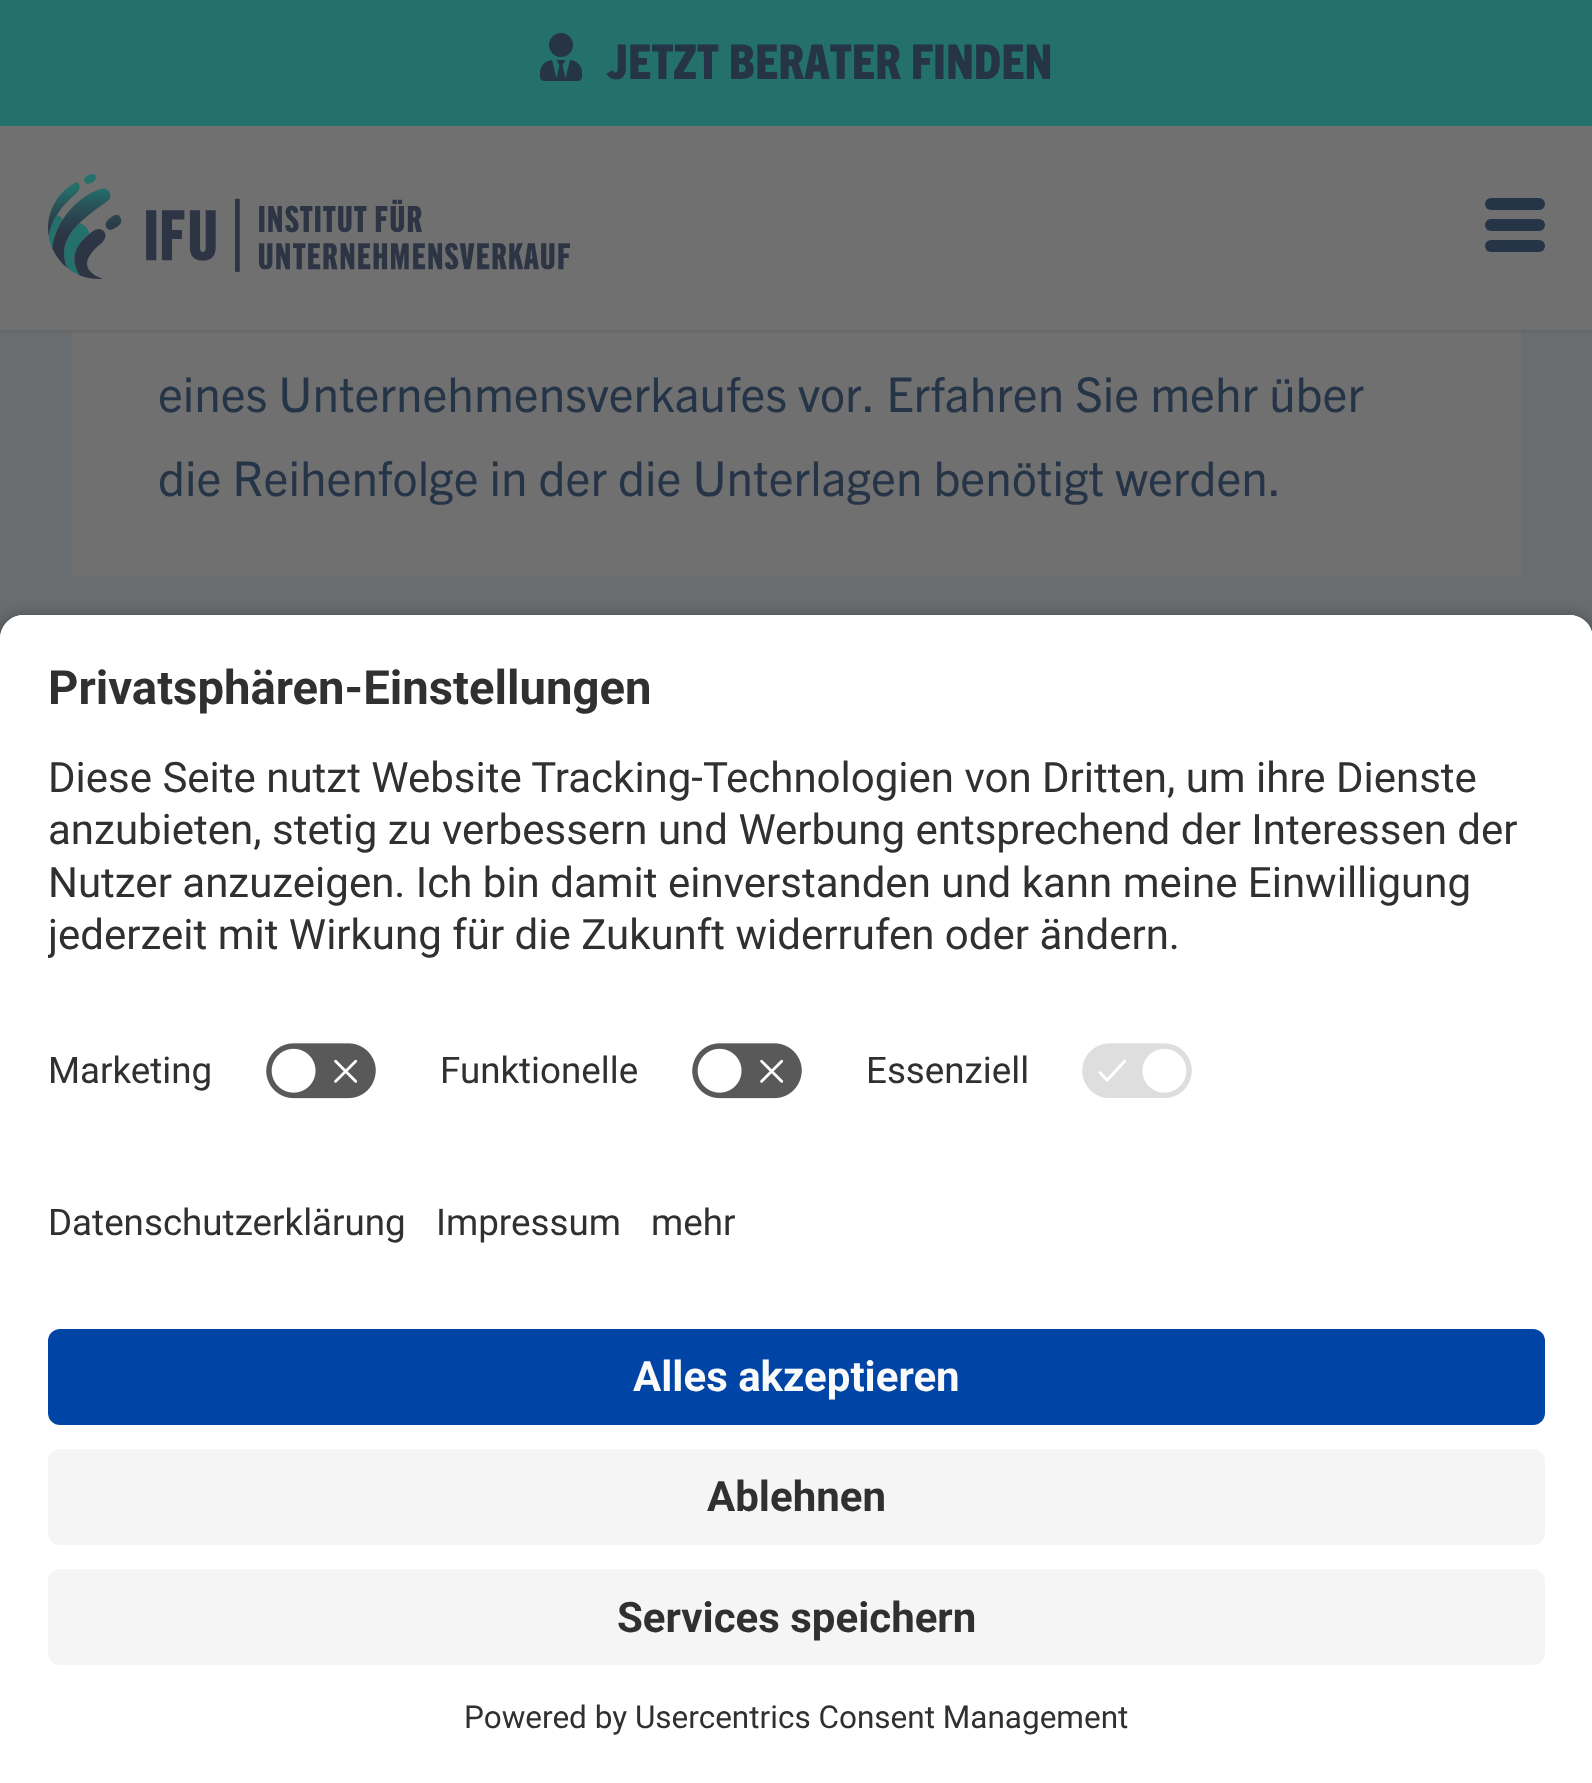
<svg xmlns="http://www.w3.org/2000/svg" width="1592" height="1783">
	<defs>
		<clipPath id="clip1"><rect x="48" y="741" width="1497" height="234" /></clipPath>
	</defs>
	<rect width="100%" height="100%" fill="#696D6F" />
	<rect x="0" y="0" width="1592" height="126" fill="#24706B" />
	<image x="540" y="33" width="42" height="48" href="assets/img1.png" />
	<text x="607" y="79" font-family="'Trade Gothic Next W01'" font-size="48" font-weight="800" fill="#253447">JETZT BERATER FINDEN</text>
	<rect x="72" y="330" width="1449" height="246" fill="#707070" />
	<rect x="0" y="330" width="1592" height="3" fill="#242424" fill-opacity="0.08" />
	<rect x="0" y="126" width="1592" height="204" fill="#707070" />
	<image x="48" y="174" width="522" height="105" href="assets/img2.png" />
	<rect x="1485" y="219" width="60" height="12" rx="6" fill="#253447" />
	<rect x="1485" y="198" width="60" height="12" rx="6" fill="#253447" />
	<rect x="1485" y="240" width="60" height="12" rx="6" fill="#253447" />
	<g font-family="'Trade Gothic Next W01'" font-size="48" fill="#253447">
		<text x="158" y="412">eines Unternehmensverkaufes vor. Erfahren Sie mehr über</text>
		<text x="158" y="496">die Reihenfolge in der die Unterlagen benötigt werden.</text>
	</g>
	<rect x="0" y="624" width="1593" height="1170" rx="24" fill="#000000" fill-opacity="0.8" filter="blur(10.5px)" />
	<path d="M24 615H1569C1582.5 615 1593 625.5 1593 639V1155H0V639C0 625.5 10.5 615 24 615Z" fill="#FFFFFF" />
	<path d="M24 615H1569C1582.5 615 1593 625.5 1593 639V1023H0V639C0 625.5 10.5 615 24 615Z" fill="#FFFFFF" />
	<text x="48" y="704" font-family="Roboto" font-size="47.25" font-weight="700" fill="#303030">Privatsphären-Einstellungen</text>
	<g font-family="Roboto" font-size="42" fill="#303030">
		<text x="48" y="792">Diese Seite nutzt Website Tracking-Technologien von Dritten, um ihre Dienste</text>
		<text x="48" y="844">anzubieten, stetig zu verbessern und Werbung entsprechend der Interessen der</text>
		<text x="48" y="897">Nutzer anzuzeigen. Ich bin damit einverstanden und kann meine Einwilligung</text>
	</g>
	<g clip-path="url(#clip1)">
		<text x="48" y="949" font-family="Roboto" font-size="42" fill="#303030">jederzeit mit Wirkung für die Zukunft widerrufen oder ändern.</text>
	</g>
	<text x="48" y="1083" font-family="Roboto" font-size="36.75" fill="#303030">Marketing</text>
	<image x="266" y="1043" width="110" height="56" href="assets/img3.png" />
	<text x="440" y="1083" font-family="Roboto" font-size="36.75" fill="#303030">Funktionelle</text>
	<image x="692" y="1043" width="110" height="56" href="assets/img3.png" />
	<text x="866" y="1083" font-family="Roboto" font-size="36.75" fill="#303030">Essenziell</text>
	<image x="1082" y="1043" width="110" height="55" href="assets/img4.png" />
	<rect x="0" y="1155" width="1592" height="628" fill="#FFFFFF" />
	<g font-family="Roboto" font-size="36.75" fill="#303030">
		<text x="48" y="1235">Datenschutzerklärung</text>
		<text x="436" y="1235">Impressum</text>
		<text x="651" y="1235">mehr</text>
	</g>
	<rect x="48" y="1329" width="1497" height="96" rx="12" fill="#0045A5" />
	<text x="633" y="1391" font-family="Roboto" font-size="42" font-weight="700" fill="#FAFAFA">Alles akzeptieren</text>
	<rect x="48" y="1449" width="1497" height="96" rx="12" fill="#F5F5F5" />
	<text x="707" y="1511" font-family="Roboto" font-size="42" font-weight="700" fill="#303030">Ablehnen</text>
	<rect x="48" y="1569" width="1497" height="96" rx="12" fill="#F5F5F5" />
	<text x="617" y="1632" font-family="Roboto" font-size="42" font-weight="700" fill="#303030">Services speichern</text>
	<text x="464" y="1728" font-family="Roboto" font-size="31.5" fill="#303030">Powered by Usercentrics Consent Management</text>
</svg>
